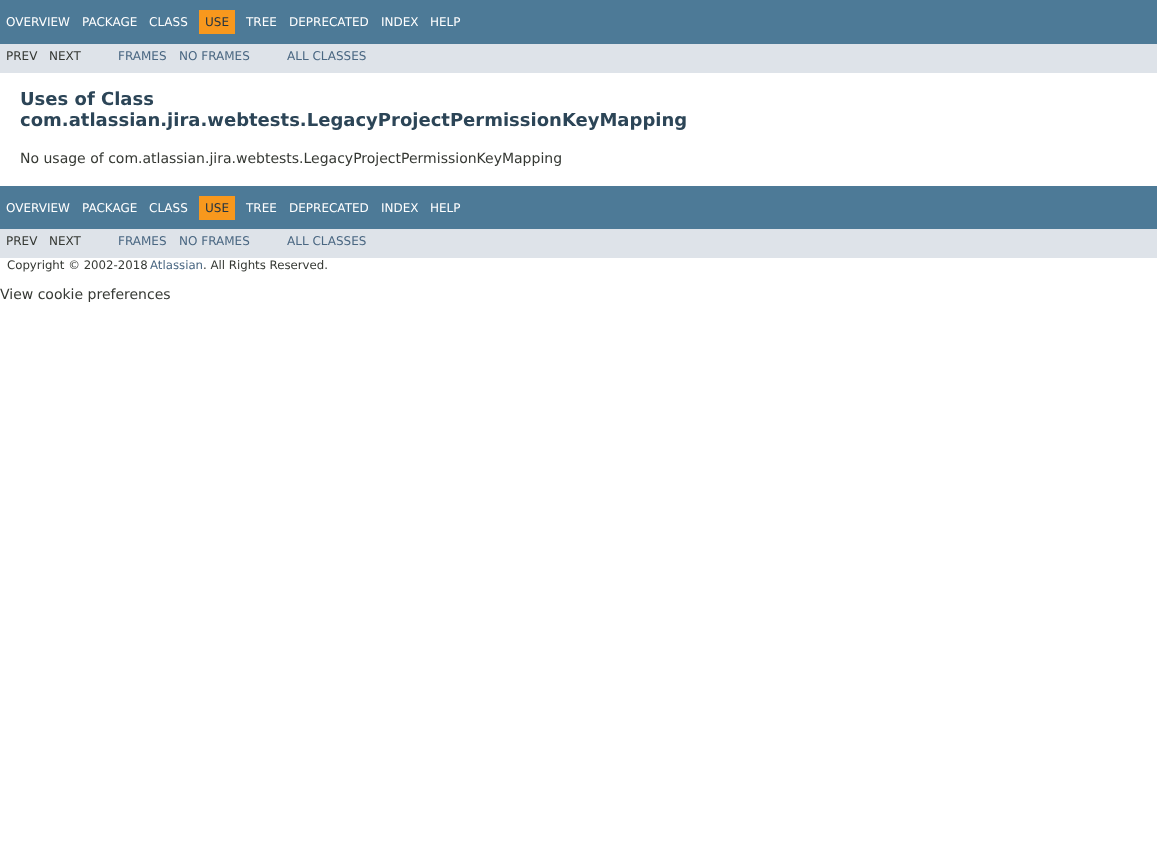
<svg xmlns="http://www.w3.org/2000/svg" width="1157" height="850">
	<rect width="100%" height="100%" fill="#FFFFFF" />
	<rect x="0" y="0" width="1157" height="44" fill="#4D7A97" />
	<g font-family="DejaVu Sans" font-size="12" fill="#FFFFFF">
		<text x="6" y="26">OVERVIEW</text>
		<text x="82" y="26">PACKAGE</text>
		<text x="149" y="26">CLASS</text>
	</g>
	<rect x="199" y="10" width="36" height="24" fill="#F8981D" />
	<text x="205" y="26" font-family="DejaVu Sans" font-size="12" fill="#253441">USE</text>
	<g font-family="DejaVu Sans" font-size="12" fill="#FFFFFF">
		<text x="246" y="26">TREE</text>
		<text x="289" y="26">DEPRECATED</text>
		<text x="381" y="26">INDEX</text>
		<text x="430" y="26">HELP</text>
	</g>
	<rect x="0" y="44" width="1157" height="29" fill="#DEE3E9" />
	<g font-family="DejaVu Sans" font-size="12" fill="#353833">
		<text x="6" y="60">PREV</text>
		<text x="49" y="60">NEXT</text>
	</g>
	<g font-family="DejaVu Sans" font-size="12" fill="#4A6782">
		<text x="118" y="60">FRAMES</text>
		<text x="179" y="60">NO FRAMES</text>
		<text x="287" y="60">ALL CLASSES</text>
	</g>
	<g font-family="DejaVu Sans" font-size="18" font-weight="700" fill="#2C4557">
		<text x="20" y="105">Uses of Class</text>
		<text x="20" y="126">com.atlassian.jira.webtests.LegacyProjectPermissionKeyMapping</text>
	</g>
	<text x="20" y="163" font-family="DejaVu Sans" font-size="14" fill="#353833">No usage of com.atlassian.jira.webtests.LegacyProjectPermissionKeyMapping</text>
	<rect x="0" y="186" width="1157" height="43" fill="#4D7A97" />
	<g font-family="DejaVu Sans" font-size="12" fill="#FFFFFF">
		<text x="6" y="212">OVERVIEW</text>
		<text x="82" y="212">PACKAGE</text>
		<text x="149" y="212">CLASS</text>
	</g>
	<rect x="199" y="196" width="36" height="24" fill="#F8981D" />
	<text x="205" y="212" font-family="DejaVu Sans" font-size="12" fill="#253441">USE</text>
	<g font-family="DejaVu Sans" font-size="12" fill="#FFFFFF">
		<text x="246" y="212">TREE</text>
		<text x="289" y="212">DEPRECATED</text>
		<text x="381" y="212">INDEX</text>
		<text x="430" y="212">HELP</text>
	</g>
	<rect x="0" y="229" width="1157" height="29" fill="#DEE3E9" />
	<g font-family="DejaVu Sans" font-size="12" fill="#353833">
		<text x="6" y="245">PREV</text>
		<text x="49" y="245">NEXT</text>
	</g>
	<g font-family="DejaVu Sans" font-size="12" fill="#4A6782">
		<text x="118" y="245">FRAMES</text>
		<text x="179" y="245">NO FRAMES</text>
		<text x="287" y="245">ALL CLASSES</text>
	</g>
	<text x="7" y="269" font-family="DejaVu Sans" font-size="11.75" fill="#353833">Copyright © 2002-2018</text>
	<text x="150" y="269" font-family="DejaVu Sans" font-size="11.75" fill="#4A6782">Atlassian</text>
	<text x="203" y="269" font-family="DejaVu Sans" font-size="11.75" fill="#353833">. All Rights Reserved.</text>
	<text x="0" y="299" font-family="DejaVu Sans" font-size="14" fill="#353833">View cookie preferences</text>
</svg>
